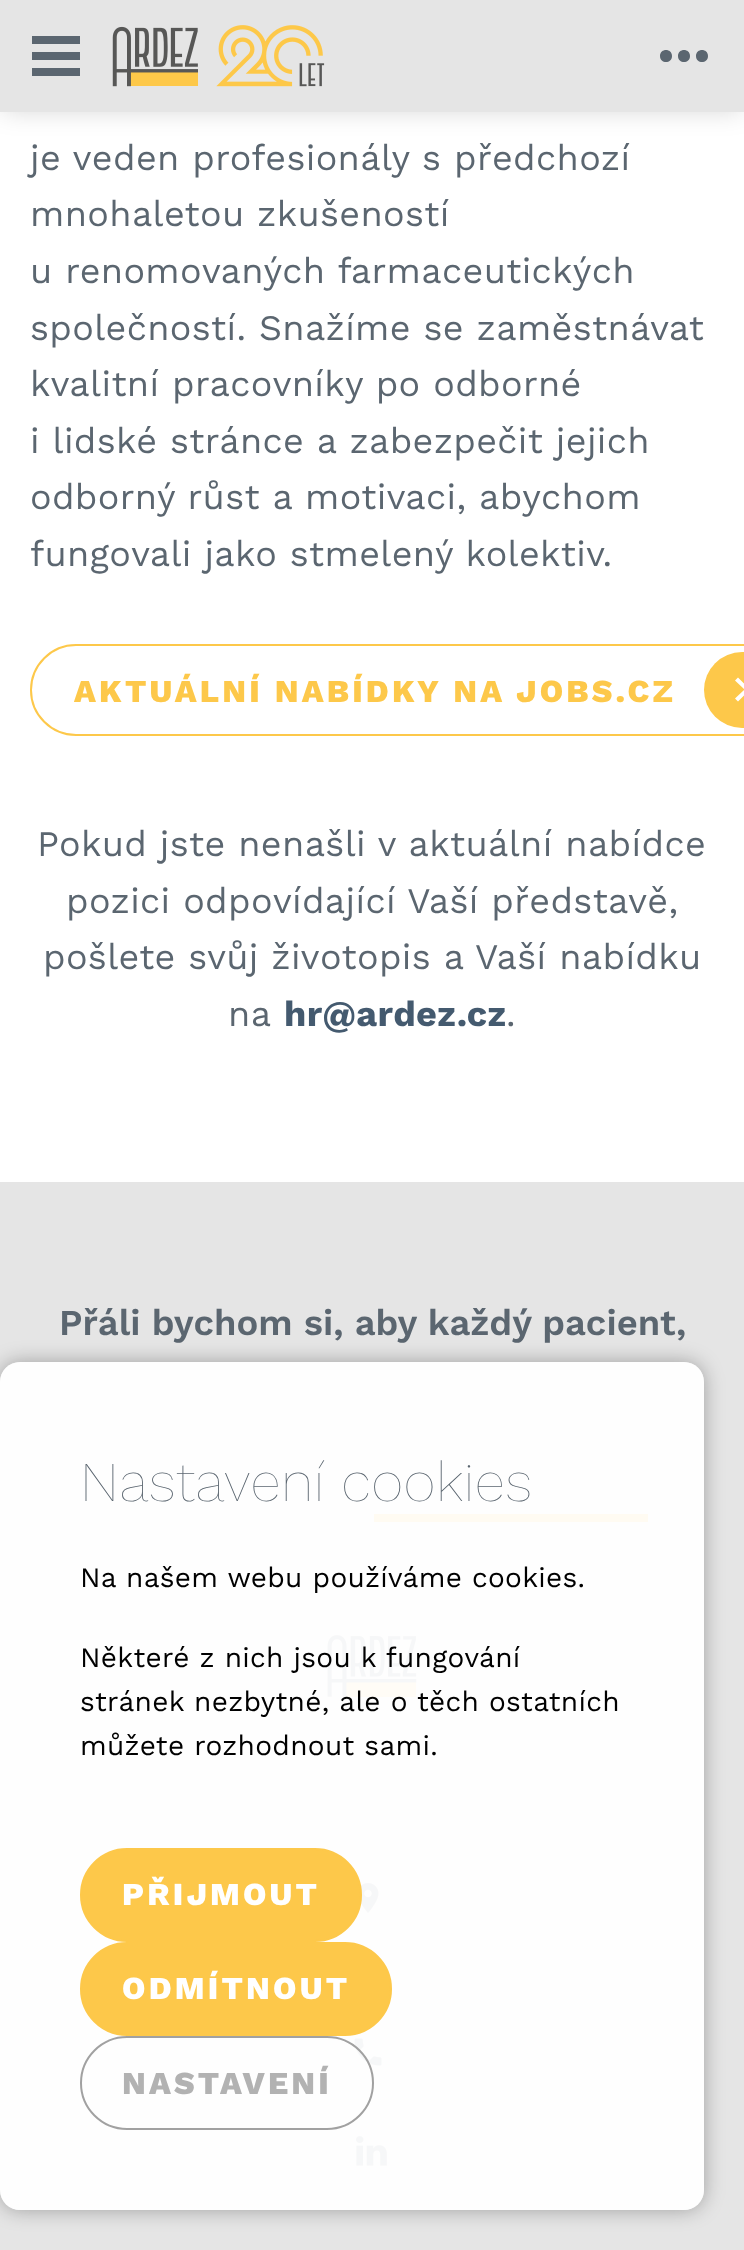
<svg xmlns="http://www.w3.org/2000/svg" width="744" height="2250">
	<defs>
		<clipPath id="clip1"><path d="M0 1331H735V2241H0ZM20 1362H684C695 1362 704 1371 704 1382V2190C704 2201 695 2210 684 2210H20C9 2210 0 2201 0 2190V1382C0 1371 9 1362 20 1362Z" clip-rule="evenodd" /></clipPath>
	</defs>
	<rect width="100%" height="100%" fill="#FFFFFF" />
	<rect x="2" y="2" width="740" height="108" fill="#000000" fill-opacity="0.17" filter="blur(13px)" />
	<rect x="0" y="0" width="744" height="112" fill="#E5E5E5" />
	<rect x="32" y="52" width="48" height="8" fill="#5B6670" />
	<rect x="32" y="36" width="48" height="8" fill="#5B6670" />
	<rect x="32" y="68" width="48" height="8" fill="#5B6670" />
	<image x="112" y="25" width="213" height="62" href="assets/img1.png" />
	<path d="M690 56C690 64 678 64 678 56C678 48 690 48 690 56ZM708 56C708 64 696 64 696 56C696 48 708 48 708 56ZM672 56C672 64 660 64 660 56C660 48 672 48 672 56Z" fill="#5B6670" />
	<g font-family="Work Sans" font-size="36" letter-spacing="0.35" fill="#5B6670">
		<text x="30" y="170">je veden profesionály s předchozí</text>
		<text x="30" y="226">mnohaletou zkušeností</text>
		<text x="30" y="283">u renomovaných farmaceutických</text>
		<text x="30" y="340">společností. Snažíme se zaměstnávat</text>
		<text x="30" y="396">kvalitní pracovníky po odborné</text>
		<text x="30" y="453">i lidské stránce a zabezpečit jejich</text>
		<text x="30" y="509">odborný růst a motivaci, abychom</text>
		<text x="30" y="566">fungovali jako stmelený kolektiv.</text>
	</g>
	<rect x="31" y="645" width="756" height="90" rx="45" fill="none" stroke="#FDC84A" stroke-width="2" />
	<text x="74" y="702" font-family="Work Sans" font-size="32" font-weight="800" letter-spacing="3.2" fill="#FDC84A">AKTUÁLNÍ NABÍDKY NA JOBS.CZ</text>
	<circle cx="742" cy="690" r="38" fill="#FDC84A" />
	<path d="M735 698.5L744.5 689.5L735 680.5L738 677.5L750 689.5L738 701.5Z" fill="#FFFFFF" />
	<g font-family="Work Sans" font-size="36" letter-spacing="0.35" fill="#5B6670">
		<text x="37" y="856">Pokud jste nenašli v aktuální nabídce</text>
		<text x="66" y="913">pozici odpovídající Vaší představě,</text>
		<text x="43" y="969">pošlete svůj životopis a Vaší nabídku</text>
		<text x="228" y="1026">na</text>
	</g>
	<text x="284" y="1026" font-family="Work Sans" font-size="36" font-weight="700" letter-spacing="0.35" fill="#445A6F">hr@ardez.cz</text>
	<text x="506" y="1026" font-family="Work Sans" font-size="36" letter-spacing="0.35" fill="#5B6670">.</text>
	<rect x="0" y="1182" width="744" height="1068" fill="#E5E5E5" />
	<text x="59" y="1335" font-family="Work Sans" font-size="36.4" font-weight="600" fill="#5B6670">Přáli bychom si, aby každý pacient,</text>
	<rect x="374" y="1514" width="274" height="8" fill="#FFB607" />
	<image x="327" y="1635" width="90" height="62" href="assets/img2.png" />
	<image x="360" y="1883" width="19" height="30" href="assets/img3.png" />
	<image x="354" y="2038" width="28" height="28" href="assets/img4.png" />
	<image x="356" y="2136" width="31" height="30" href="assets/img5.png" />
	<g clip-path="url(#clip1)">
		<rect x="0" y="1362" width="704" height="848" rx="20" fill="#000000" fill-opacity="0.3" filter="blur(10px)" />
	</g>
	<rect x="0" y="1362" width="704" height="848" rx="20" fill="#FFFFFF" fill-opacity="0.95" />
	<text x="80" y="1501" font-family="Work Sans" font-size="56" font-weight="100" letter-spacing="0.6" fill="#5B6670">Nastavení cookies</text>
	<g font-family="Work Sans" font-size="28" letter-spacing="0.3" fill="#000000">
		<text x="80" y="1587">Na našem webu používáme cookies.</text>
		<text x="80" y="1667">Některé z nich jsou k fungování</text>
		<text x="80" y="1711">stránek nezbytné, ale o těch ostatních</text>
		<text x="80" y="1755">můžete rozhodnout sami.</text>
	</g>
	<rect x="81" y="1849" width="280" height="92" rx="46" fill="#FDC84A" stroke="#FDC84A" stroke-width="2" />
	<text x="122" y="1905" font-family="Work Sans" font-size="32" font-weight="800" letter-spacing="3.2" fill="#FFFFFF">PŘIJMOUT</text>
	<rect x="81" y="1943" width="310" height="92" rx="46" fill="#FDC84A" stroke="#FDC84A" stroke-width="2" />
	<text x="122" y="1999" font-family="Work Sans" font-size="32" font-weight="800" letter-spacing="3.2" fill="#FFFFFF">ODMÍTNOUT</text>
	<rect x="81" y="2037" width="292" height="92" rx="46" fill="none" stroke="#A1A1A1" stroke-width="2" />
	<text x="122" y="2094" font-family="Work Sans" font-size="32" font-weight="800" letter-spacing="3.2" fill="#B2B2B2">NASTAVENÍ</text>
</svg>
